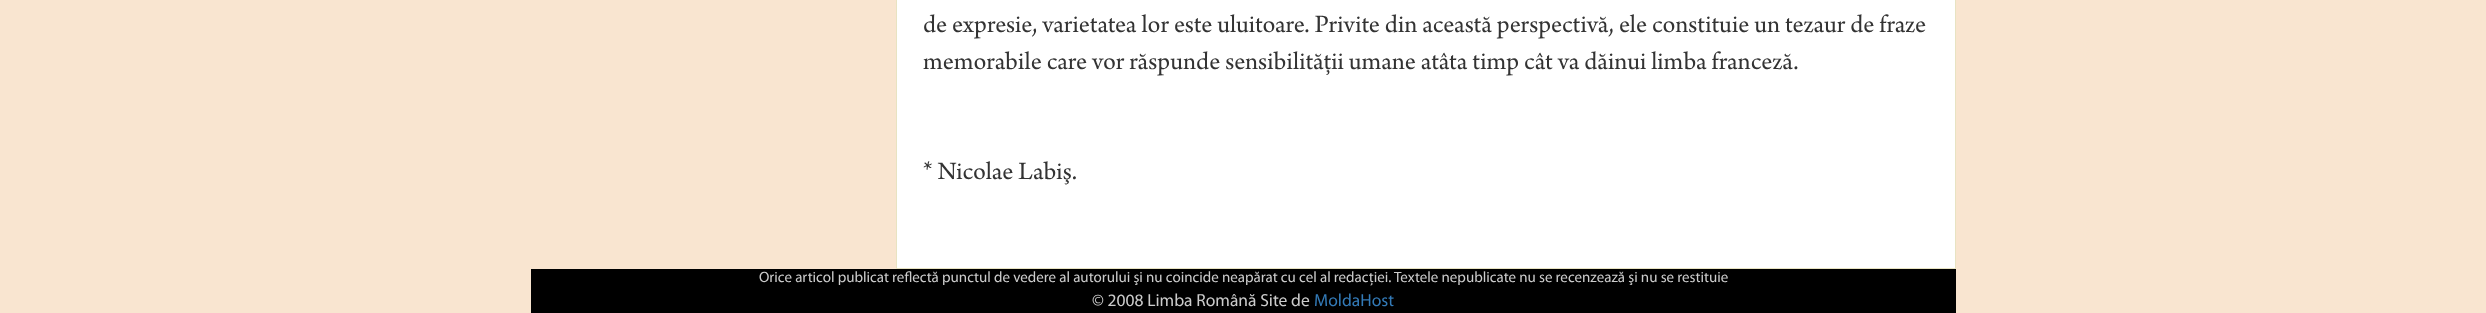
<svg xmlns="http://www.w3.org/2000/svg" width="2486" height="313">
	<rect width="100%" height="100%" fill="#F9E5D0" />
	<rect x="896.5" y="-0.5" width="1059" height="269" fill="#FFFFFF" stroke="#E8E3C2" />
	<g font-family="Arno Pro" font-size="26.25" fill="#333333">
		<text x="923" y="32">de expresie, varietatea lor este uluitoare. Privite din această perspectivă, ele constituie un tezaur de fraze</text>
		<text x="923" y="69">memorabile care vor răspunde sensibilităţii umane atâta timp cât va dăinui limba franceză.</text>
		<text x="923" y="179">* Nicolae Labiş.</text>
	</g>
	<rect x="531" y="269" width="1425" height="44" fill="#000000" />
	<text x="759" y="282" font-family="Myriad" font-size="15" fill="#CCCCCC">Orice articol publicat reflectă punctul de vedere al autorului şi nu coincide neapărat cu cel al redacţiei. Textele nepublicate nu se recenzează şi nu se restituie</text>
	<text x="1092" y="306" font-family="Myriad" font-size="17.5" fill="#CCCCCC">© 2008 Limba Română Site de</text>
	<text x="1314" y="306" font-family="Myriad" font-size="17.5" fill="#337AB7">MoldaHost</text>
</svg>
